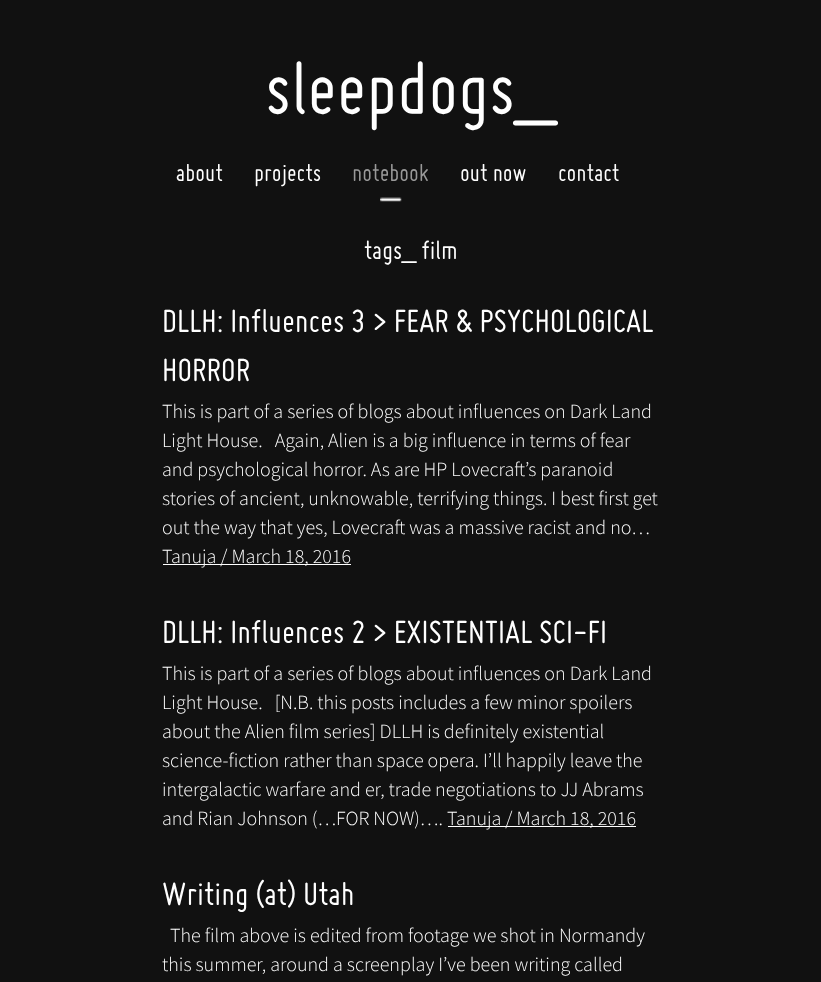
<svg xmlns="http://www.w3.org/2000/svg" width="821" height="982">
	<rect width="100%" height="100%" fill="#111111" />
	<text x="265" y="114" font-family="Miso" font-size="80" fill="#FFFFFF">sleepdogs_</text>
	<g font-family="Miso" font-size="26" fill="#FFFFFF">
		<text x="176" y="181">about</text>
		<text x="254" y="181">projects</text>
	</g>
	<image x="380" y="197" width="22" height="5" href="assets/img1.png" />
	<text x="352" y="181" font-family="Miso" font-size="26" fill="#999999">notebook</text>
	<g font-family="Miso" font-size="26" fill="#FFFFFF">
		<text x="460" y="181">out now</text>
		<text x="558" y="181">contact</text>
	</g>
	<text x="364" y="259" font-family="Miso" font-size="28" fill="#FFFFFF">tags_ film</text>
	<g font-family="Miso" font-size="35" fill="#FFFFFF">
		<text x="162" y="332">DLLH: Influences 3 &gt; FEAR &amp; PSYCHOLOGICAL</text>
		<text x="162" y="381">HORROR</text>
	</g>
	<g font-family="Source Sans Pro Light" font-size="20" font-weight="300" fill="#FFFFFF">
		<text x="162" y="418">This is part of a series of blogs about influences on Dark Land</text>
		<text x="162" y="447" xml:space="preserve">Light House.   Again, Alien is a big influence in terms of fear</text>
		<text x="162" y="476">and psychological horror. As are HP Lovecraft’s paranoid</text>
		<text x="162" y="505">stories of ancient, unknowable, terrifying things. I best first get</text>
		<text x="162" y="534">out the way that yes, Lovecraft was a massive racist and no…</text>
	</g>
	<rect x="163" y="564" width="188" height="1" fill="#FFFFFF" />
	<text x="162" y="563" font-family="Source Sans Pro Light" font-size="20" font-weight="300" fill="#FFFFFF">Tanuja / March 18, 2016</text>
	<text x="162" y="643" font-family="Miso" font-size="35" fill="#FFFFFF">DLLH: Influences 2 &gt; EXISTENTIAL SCI-FI</text>
	<g font-family="Source Sans Pro Light" font-size="20" font-weight="300" fill="#FFFFFF">
		<text x="162" y="680">This is part of a series of blogs about influences on Dark Land</text>
		<text x="162" y="709" xml:space="preserve">Light House.   [N.B. this posts includes a few minor spoilers</text>
		<text x="162" y="738">about the Alien film series] DLLH is definitely existential</text>
		<text x="162" y="767">science-fiction rather than space opera. I’ll happily leave the</text>
		<text x="162" y="796">intergalactic warfare and er, trade negotiations to JJ Abrams</text>
		<text x="162" y="825">and Rian Johnson (…FOR NOW)….</text>
	</g>
	<rect x="448" y="826" width="188" height="1" fill="#FFFFFF" />
	<text x="447" y="825" font-family="Source Sans Pro Light" font-size="20" font-weight="300" fill="#FFFFFF">Tanuja / March 18, 2016</text>
	<text x="162" y="905" font-family="Miso" font-size="35" fill="#FFFFFF">Writing (at) Utah</text>
	<g font-family="Source Sans Pro Light" font-size="20" font-weight="300" fill="#FFFFFF">
		<text x="170" y="942">The film above is edited from footage we shot in Normandy</text>
		<text x="162" y="971">this summer, around a screenplay I’ve been writing called</text>
	</g>
</svg>
